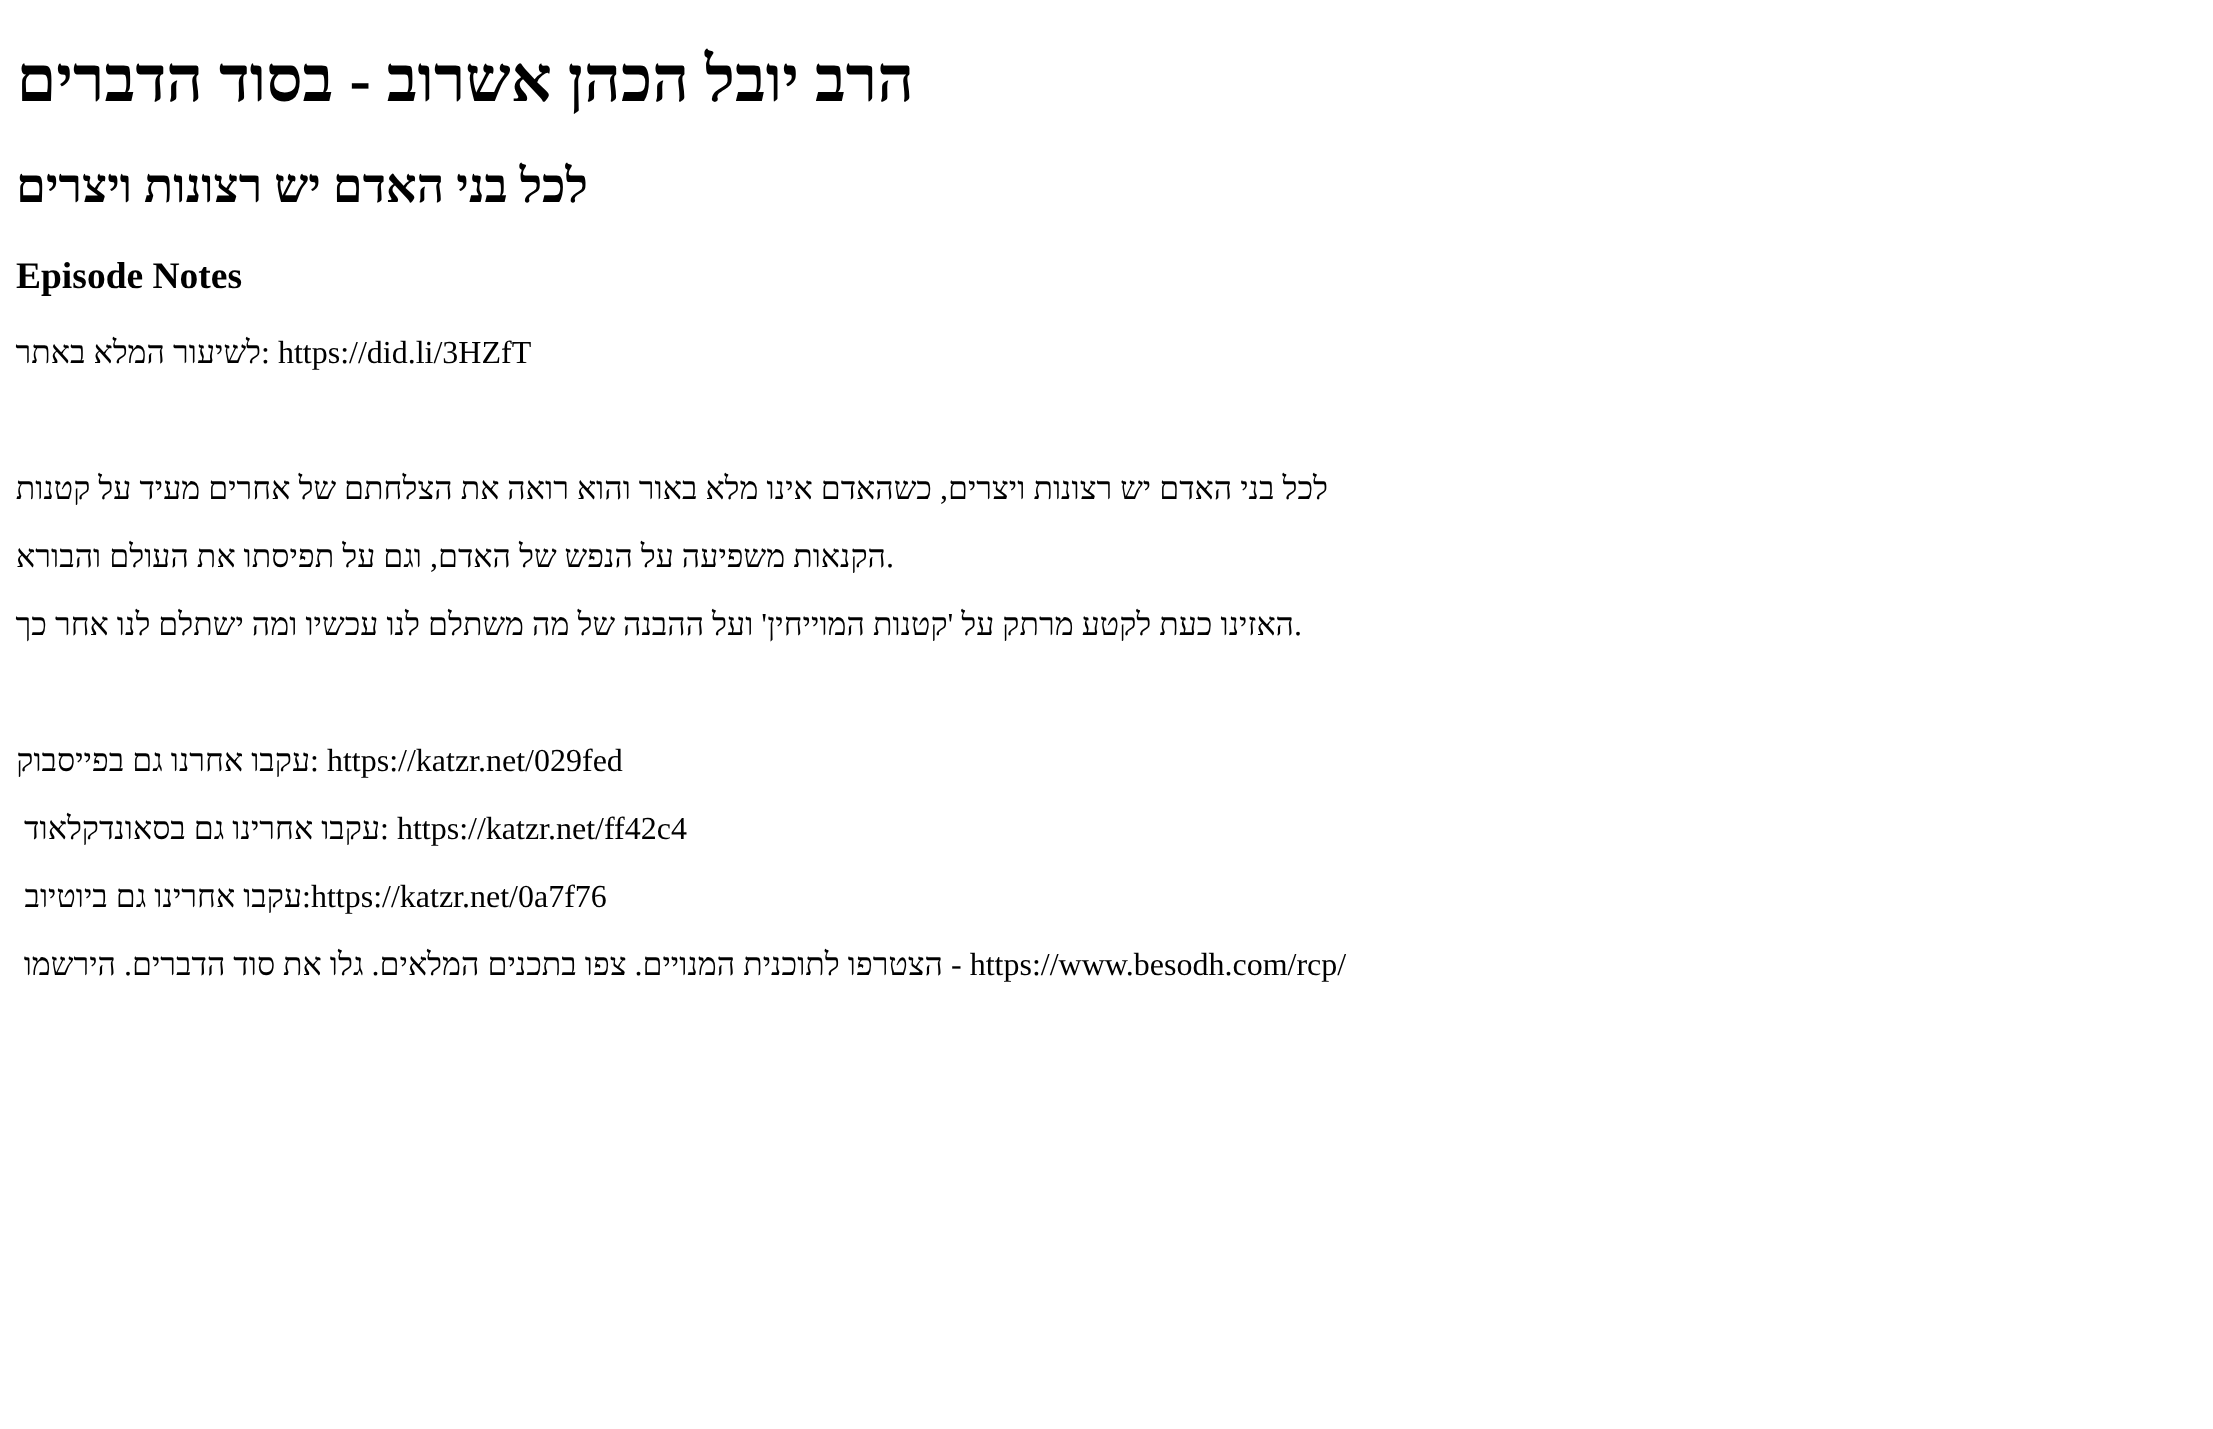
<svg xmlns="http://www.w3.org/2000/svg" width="2213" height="1429">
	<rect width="100%" height="100%" fill="#FFFFFF" />
	<text x="914" y="101" font-family="Liberation Serif" font-size="64" font-weight="700" direction="rtl" fill="#000000">הרב יובל הכהן אשרוב - בסוד הדברים</text>
	<text x="588" y="202" font-family="Liberation Serif" font-size="48" font-weight="700" direction="rtl" fill="#000000">לכל בני האדם יש רצונות ויצרים</text>
	<text x="16" y="288" font-family="Liberation Serif" font-size="37.5" font-weight="700" fill="#000000">Episode Notes</text>
	<text x="261" y="363" font-family="Liberation Serif" font-size="32" fill="#000000">: https://did.li/3HZfT</text>
	<g font-family="Liberation Serif" font-size="32" direction="rtl" fill="#000000">
		<text x="261" y="363">לשיעור המלא באתר</text>
		<text x="1328" y="499">לכל בני האדם יש רצונות ויצרים, כשהאדם אינו מלא באור והוא רואה את הצלחתם של אחרים מעיד על קטנות</text>
	</g>
	<text x="886" y="567" font-family="Liberation Serif" font-size="32" fill="#000000">.</text>
	<text x="886" y="567" font-family="Liberation Serif" font-size="32" direction="rtl" fill="#000000">הקנאות משפיעה על הנפש של האדם, וגם על תפיסתו את העולם והבורא</text>
	<text x="1294" y="635" font-family="Liberation Serif" font-size="32" fill="#000000">.</text>
	<text x="1294" y="635" font-family="Liberation Serif" font-size="32" direction="rtl" fill="#000000">האזינו כעת לקטע מרתק על 'קטנות המוייחין' ועל ההבנה של מה משתלם לנו עכשיו ומה ישתלם לנו אחר כך</text>
	<text x="310" y="771" font-family="Liberation Serif" font-size="32" fill="#000000">: https://katzr.net/029fed</text>
	<text x="310" y="771" font-family="Liberation Serif" font-size="32" direction="rtl" fill="#000000">עקבו אחרנו גם בפייסבוק</text>
	<text x="380" y="839" font-family="Liberation Serif" font-size="32" fill="#000000">: https://katzr.net/ff42c4</text>
	<text x="380" y="839" font-family="Liberation Serif" font-size="32" direction="rtl" fill="#000000">עקבו אחרינו גם בסאונדקלאוד</text>
	<text x="302" y="907" font-family="Liberation Serif" font-size="32" fill="#000000">:https://katzr.net/0a7f76</text>
	<text x="302" y="907" font-family="Liberation Serif" font-size="32" direction="rtl" fill="#000000">עקבו אחרינו גם ביוטיוב</text>
	<text x="951" y="975" font-family="Liberation Serif" font-size="32" fill="#000000">- https://www.besodh.com/rcp/</text>
	<text x="943" y="975" font-family="Liberation Serif" font-size="32" direction="rtl" fill="#000000">הצטרפו לתוכנית המנויים. צפו בתכנים המלאים. גלו את סוד הדברים. הירשמו</text>
</svg>
